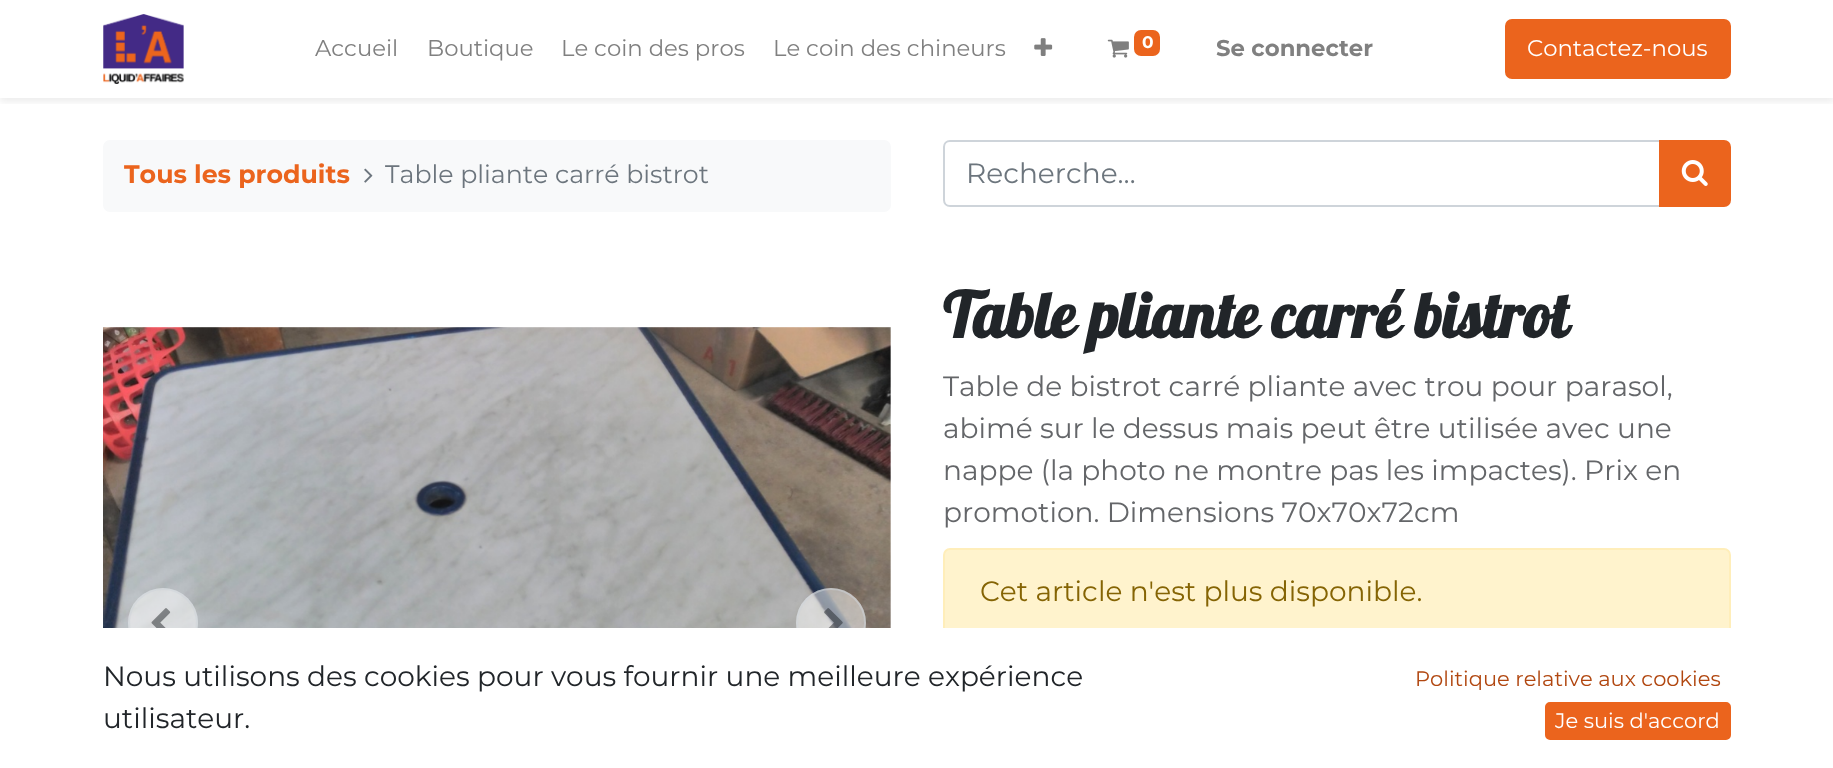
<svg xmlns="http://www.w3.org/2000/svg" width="1833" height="768">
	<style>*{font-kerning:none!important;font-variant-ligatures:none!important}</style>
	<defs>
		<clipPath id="clip1"><rect x="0" y="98" width="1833" height="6" /></clipPath>
	</defs>
	<rect width="100%" height="100%" fill="#FFFFFF" />
	<g clip-path="url(#clip1)">
		<rect x="0" y="4" width="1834" height="98" fill="#000000" fill-opacity="0.07" filter="blur(3.5px)" />
	</g>
	<image x="103" y="14" width="81" height="70" href="assets/img1.png" />
	<g font-family="Montserrat" font-size="22.75" fill="#808080">
		<text x="315" y="56">Accueil</text>
		<text x="427" y="56">Boutique</text>
		<text x="561" y="56">Le coin des pros</text>
		<text x="773" y="56">Le coin des chineurs</text>
	</g>
	<image x="1034" y="38" width="19" height="18" href="assets/img2.png" />
	<image x="1107" y="39" width="22" height="19" href="assets/img3.png" />
	<rect x="1134" y="30" width="26" height="26" rx="7" fill="#EB641D" />
	<text x="1142" y="48" font-family="Montserrat" font-size="17" font-weight="700" fill="#FFFFFF">0</text>
	<text x="1216" y="56" font-family="Montserrat" font-size="22.75" font-weight="700" fill="#808080">Se connecter</text>
	<rect x="1506" y="20" width="224" height="58" rx="6" fill="#EB641D" stroke="#EB641D" stroke-width="2" />
	<text x="1527" y="56" font-family="Montserrat" font-size="22.75" fill="#FFFFFF">Contactez-nous</text>
	<rect x="103" y="140" width="788" height="72" rx="7" fill="#F8F9FA" />
	<text x="124" y="183" font-family="Montserrat" font-size="25.25" font-weight="700" fill="#EB641D">Tous les produits</text>
	<image x="364" y="168" width="9" height="15" href="assets/img4.png" />
	<text x="385" y="183" font-family="Montserrat" font-size="25.25" fill="#6C757D">Table pliante carré bistrot</text>
	<path d="M950 141H1660V206H950C946.5 206 944 203.5 944 200V147C944 143.5 946.5 141 950 141Z" fill="none" stroke="#CED4DA" stroke-width="2" />
	<text x="966" y="183" font-family="Montserrat" font-size="28" fill="#6C757D">Recherche…</text>
	<path d="M1660 141H1724C1727.5 141 1730 143.5 1730 147V200C1730 203.5 1727.5 206 1724 206H1660Z" fill="#EB641D" stroke="#EB641D" stroke-width="2" />
	<image x="1681" y="160" width="27" height="26" href="assets/img5.png" />
	<image x="103" y="327" width="788" height="301" href="assets/img6.png" />
	<circle cx="163" cy="623" r="35" fill="#FFFFFF" fill-opacity="0.5" />
	<circle cx="163" cy="623" r="34" fill="none" stroke="#CED4DA" stroke-opacity="0.5" stroke-width="2" />
	<image x="151" y="608" width="20" height="20" href="assets/img7.png" />
	<circle cx="831" cy="623" r="35" fill="#FFFFFF" fill-opacity="0.5" />
	<circle cx="831" cy="623" r="34" fill="none" stroke="#CED4DA" stroke-opacity="0.5" stroke-width="2" />
	<image x="824" y="608" width="19" height="20" href="assets/img8.png" />
	<text x="943" y="338" font-family="Lobster" font-size="63" font-weight="700" fill="#212529">Table pliante carré bistrot</text>
	<g font-family="Montserrat" font-size="28" fill="#646669">
		<text x="943" y="396">Table de bistrot carré pliante avec trou pour parasol,</text>
		<text x="943" y="438">abimé sur le dessus mais peut être utilisée avec une</text>
		<text x="943" y="480">nappe (la photo ne montre pas les impactes). Prix en</text>
		<text x="943" y="522">promotion. Dimensions 70x70x72cm</text>
	</g>
	<rect x="944" y="549" width="786" height="85" rx="6" fill="#FFF3CD" stroke="#FFEEBA" stroke-width="2" />
	<text x="980" y="601" font-family="Montserrat" font-size="28" fill="#856404">Cet article n'est plus disponible.</text>
	<rect x="128" y="628" width="1603" height="30" fill="#FFFFFF" />
	<g font-family="Montserrat" font-size="28" fill="#212529">
		<text x="103" y="686">Nous utilisons des cookies pour vous fournir une meilleure expérience</text>
		<text x="103" y="728">utilisateur.</text>
	</g>
	<text x="1415" y="686" font-family="Montserrat" font-size="21" fill="#B14710">Politique relative aux cookies</text>
	<rect x="1546" y="703" width="184" height="36" rx="4" fill="#EB641D" stroke="#EB641D" stroke-width="2" />
	<text x="1555" y="728" font-family="Montserrat" font-size="21" fill="#FFFFFF">Je suis d'accord</text>
</svg>
